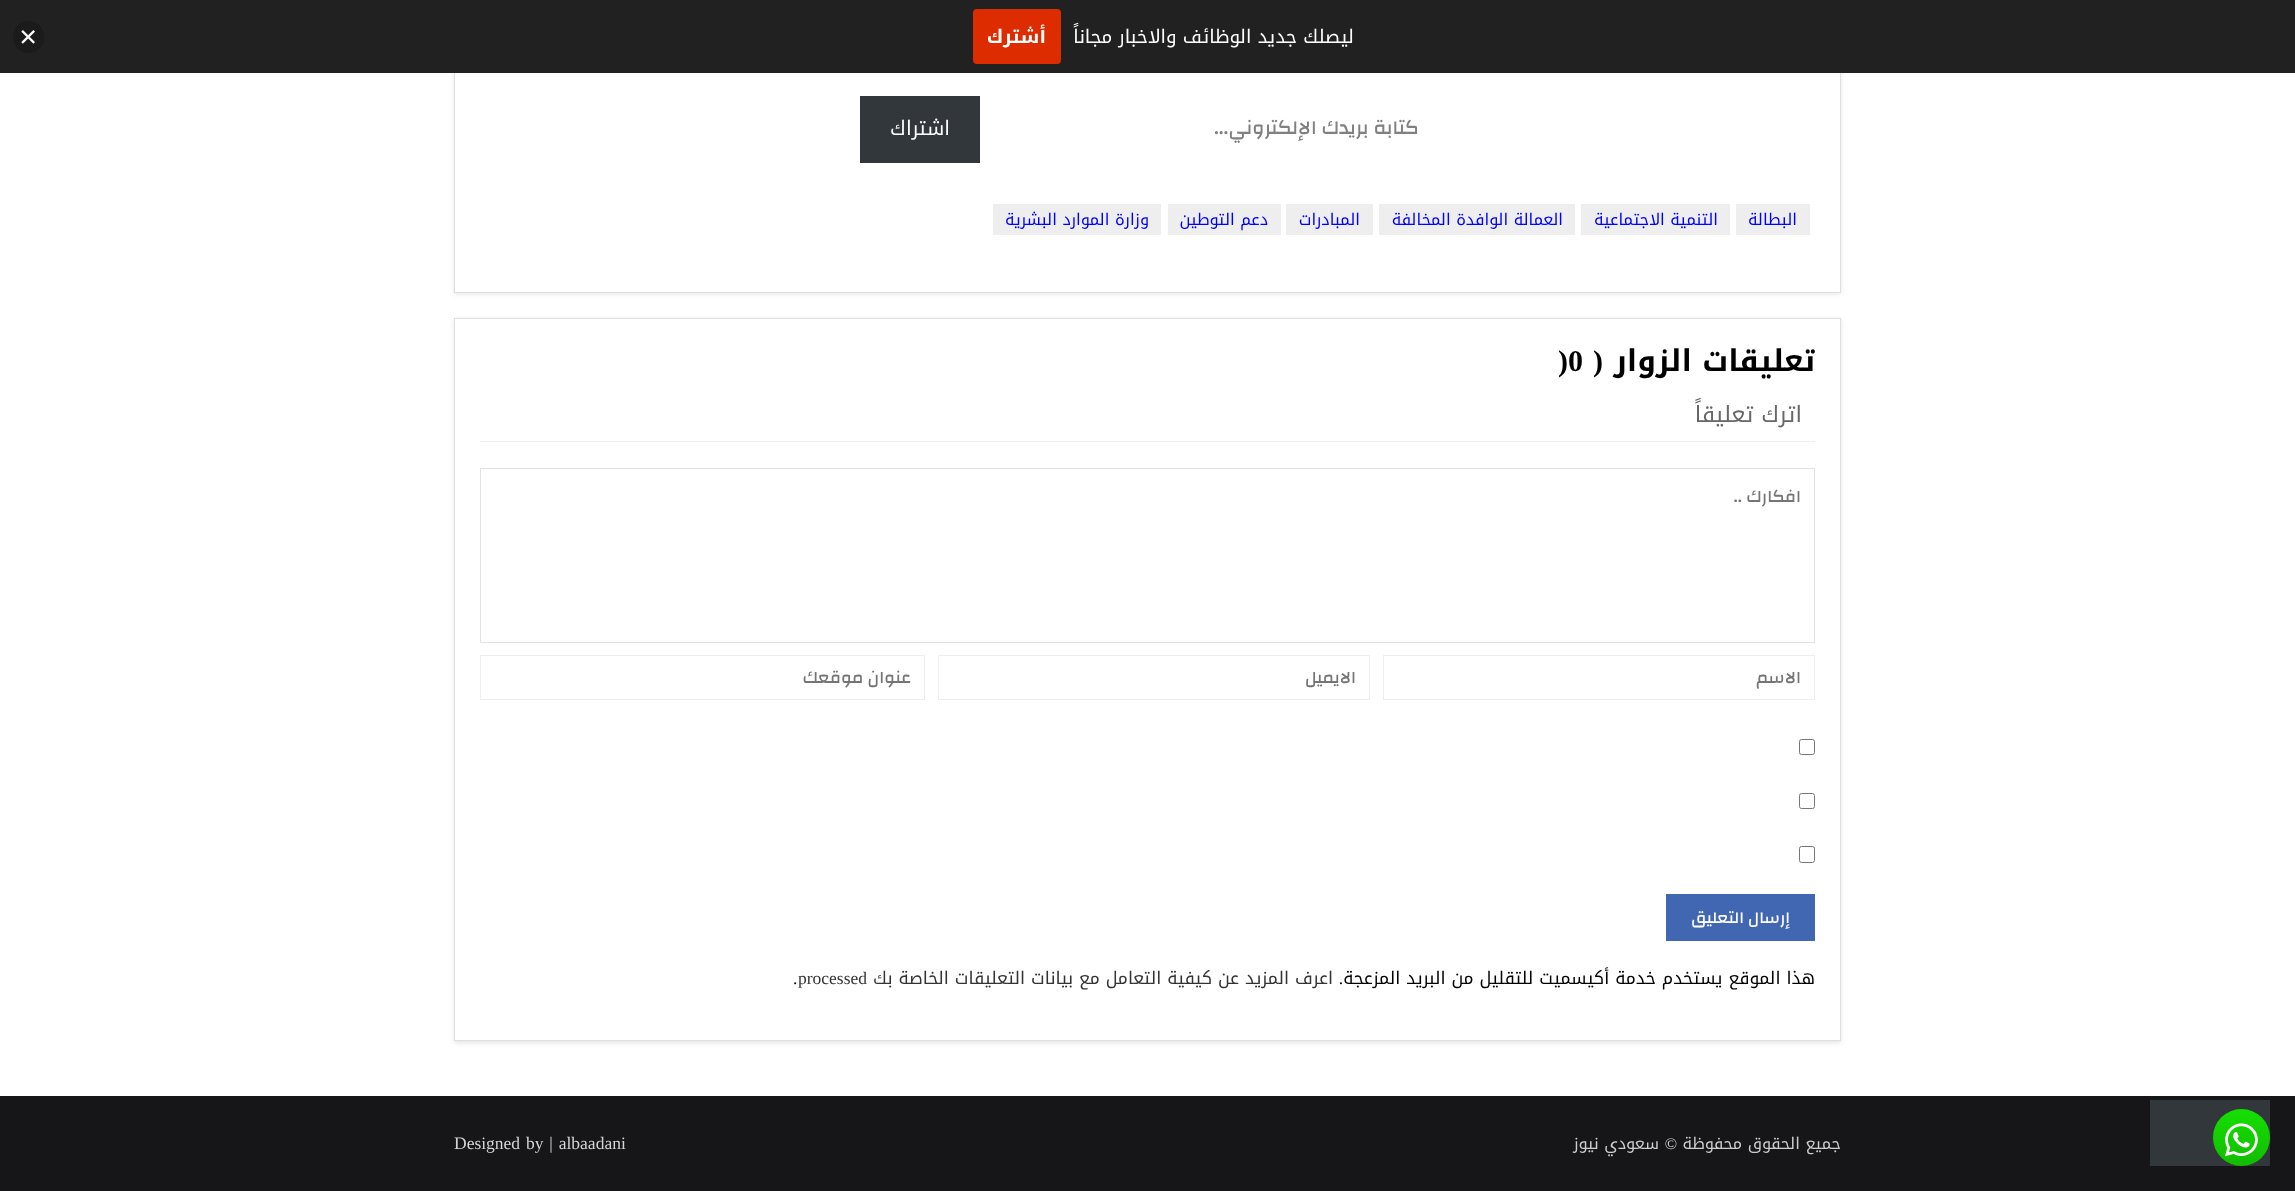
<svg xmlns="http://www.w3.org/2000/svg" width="2295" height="1191">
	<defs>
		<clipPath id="clip1"><path d="M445 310H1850V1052H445ZM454 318H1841V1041H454Z" clip-rule="evenodd" /></clipPath>
		<linearGradient id="g1" gradientUnits="userSpaceOnUse" x1="2241" y1="1109" x2="2241" y2="1166"><stop offset="0" stop-color="#15E000" /><stop offset="1" stop-color="#12BC00" /></linearGradient>
	</defs>
	<rect width="100%" height="100%" fill="#FFFFFF" />
	<rect x="454" y="-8" width="1387" height="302" fill="#000000" fill-opacity="0.1" filter="blur(2.5px)" />
	<rect x="455" y="73" width="1385" height="219" fill="#FFFFFF" />
	<rect x="454.5" y="-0.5" width="1386" height="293" fill="none" stroke="#DDDFE2" />
	<rect x="0" y="0" width="2295" height="73" fill="#212121" />
	<text x="1354" y="43" font-family="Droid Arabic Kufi" font-size="18.75" direction="rtl" fill="#FFFFFF">ليصلك جديد الوظائف والاخبار مجاناً</text>
	<rect x="973" y="9" width="88" height="55" rx="4" fill="#DD2C00" />
	<text x="1046" y="43" font-family="Droid Arabic Kufi" font-size="18.75" font-weight="700" direction="rtl" fill="#FFFFFF">أشترك</text>
	<rect x="13" y="21" width="31" height="32" rx="15.5" fill="#1B1B1B" />
	<image x="21" y="30" width="14" height="14" href="assets/img1.png" />
	<text x="1419" y="134" font-family="Changa" font-size="20" font-weight="500" direction="rtl" fill="#808080">كتابة بريدك الإلكتروني...</text>
	<rect x="860" y="96" width="120" height="67" fill="#32373C" />
	<text x="950" y="135" font-family="Droid Arabic Kufi" font-size="20" direction="rtl" fill="#FFFFFF">اشتراك</text>
	<rect x="1736" y="204" width="74" height="31" fill="#EEEEEE" />
	<text x="1797" y="225" font-family="Droid Arabic Kufi" font-size="16.25" direction="rtl" fill="#0000FF">البطالة</text>
	<rect x="1581" y="204" width="149" height="31" fill="#EEEEEE" />
	<text x="1718" y="225" font-family="Droid Arabic Kufi" font-size="16.25" direction="rtl" fill="#0000FF">التنمية الاجتماعية</text>
	<rect x="1379" y="204" width="196" height="31" fill="#EEEEEE" />
	<text x="1563" y="225" font-family="Droid Arabic Kufi" font-size="16.25" direction="rtl" fill="#0000FF">العمالة الوافدة المخالفة</text>
	<rect x="1286" y="204" width="87" height="31" fill="#EEEEEE" />
	<text x="1360" y="225" font-family="Droid Arabic Kufi" font-size="16.25" direction="rtl" fill="#0000FF">المبادرات</text>
	<rect x="1168" y="204" width="113" height="31" fill="#EEEEEE" />
	<text x="1268" y="225" font-family="Droid Arabic Kufi" font-size="16.25" direction="rtl" fill="#0000FF">دعم التوطين</text>
	<rect x="993" y="204" width="168" height="31" fill="#EEEEEE" />
	<text x="1149" y="225" font-family="Droid Arabic Kufi" font-size="16.25" direction="rtl" fill="#0000FF">وزارة الموارد البشرية</text>
	<g clip-path="url(#clip1)">
		<rect x="454" y="319" width="1387" height="724" fill="#000000" fill-opacity="0.1" filter="blur(2.5px)" />
	</g>
	<rect x="454.5" y="318.5" width="1386" height="722" fill="none" stroke="#DDDFE2" />
	<text x="1815" y="371" font-family="Droid Arabic Kufi" font-size="30" font-weight="700" direction="rtl" fill="#000000">تعليقات الزوار</text>
	<text x="1603" y="371" font-family="Liberation Serif" font-size="30" font-weight="700" direction="rtl" fill="#000000">(</text>
	<text x="1558" y="371" font-family="Liberation Serif" font-size="30" font-weight="700" fill="#000000">)0</text>
	<rect x="480" y="441" width="1335" height="1" fill="#EEEEEE" />
	<text x="1802" y="422" font-family="Droid Arabic Kufi" font-size="22.5" direction="rtl" fill="#676767">اترك تعليقاً</text>
	<rect x="480.5" y="468.5" width="1334" height="174" fill="none" stroke="#E2E2E2" />
	<text x="1801" y="502" font-family="Changa" font-size="17.5" font-weight="500" direction="rtl" fill="#757575">افكارك ..</text>
	<rect x="1383.5" y="655.5" width="431" height="44" fill="none" stroke="#EEEEEE" />
	<text x="1801" y="683" font-family="Changa" font-size="17.5" font-weight="500" direction="rtl" fill="#757575">الاسم</text>
	<rect x="938.5" y="655.5" width="431" height="44" fill="none" stroke="#EEEEEE" />
	<text x="1356" y="683" font-family="Changa" font-size="17.5" font-weight="500" direction="rtl" fill="#757575">الايميل</text>
	<rect x="480.5" y="655.5" width="444" height="44" fill="none" stroke="#EEEEEE" />
	<text x="911" y="683" font-family="Changa" font-size="17.5" font-weight="500" direction="rtl" fill="#757575">عنوان موقعك</text>
	<rect x="1799.5" y="739.5" width="15" height="15" rx="2" fill="none" stroke="#767676" />
	<rect x="1799.5" y="793.5" width="15" height="15" rx="2" fill="none" stroke="#767676" />
	<rect x="1799.5" y="846.5" width="15" height="16" rx="2" fill="none" stroke="#767676" />
	<rect x="1666" y="894" width="149" height="47" fill="#4267B2" />
	<text x="1790" y="923" font-family="Changa" font-size="16.75" font-weight="500" direction="rtl" fill="#FFFFFF">إرسال التعليق</text>
	<text x="1815" y="984" font-family="Droid Arabic Kufi" font-size="17.5" direction="rtl" fill="#000000">هذا الموقع يستخدم خدمة أكيسميت للتقليل من البريد المزعجة</text>
	<text x="1343" y="984" font-family="Liberation Serif" font-size="17.5" direction="rtl" fill="#000000">.</text>
	<text x="1333" y="984" font-family="Droid Arabic Kufi" font-size="17.5" direction="rtl" fill="#333333">اعرف المزيد عن كيفية التعامل مع بيانات التعليقات الخاصة بك</text>
	<text x="798" y="984" font-family="Liberation Serif" font-size="17.5" fill="#333333">processed</text>
	<text x="793" y="984" font-family="Liberation Serif" font-size="17.5" fill="#000000">.</text>
	<rect x="0" y="1096" width="2295" height="95" fill="#161619" />
	<rect x="2150" y="1100" width="120" height="66" fill="#32373C" />
	<circle cx="2241.5" cy="1137.5" r="28.5" fill="url(#g1)" />
	<image x="2225" y="1123" width="33" height="34" href="assets/img2.png" />
	<text x="1841" y="1149" font-family="Droid Arabic Kufi" font-size="16.25" direction="rtl" fill="#CDCDCD">جميع الحقوق محفوظة</text>
	<text x="1677" y="1149" font-family="Liberation Serif" font-size="16.25" direction="rtl" fill="#CDCDCD">©</text>
	<text x="1659" y="1149" font-family="Droid Arabic Kufi" font-size="16.25" direction="rtl" fill="#CDCDCD">سعودي نيوز</text>
	<text x="454" y="1149" word-spacing="1.5" font-family="Liberation Serif" font-size="17.5" fill="#D5D5D5">Designed by | albaadani</text>
</svg>
